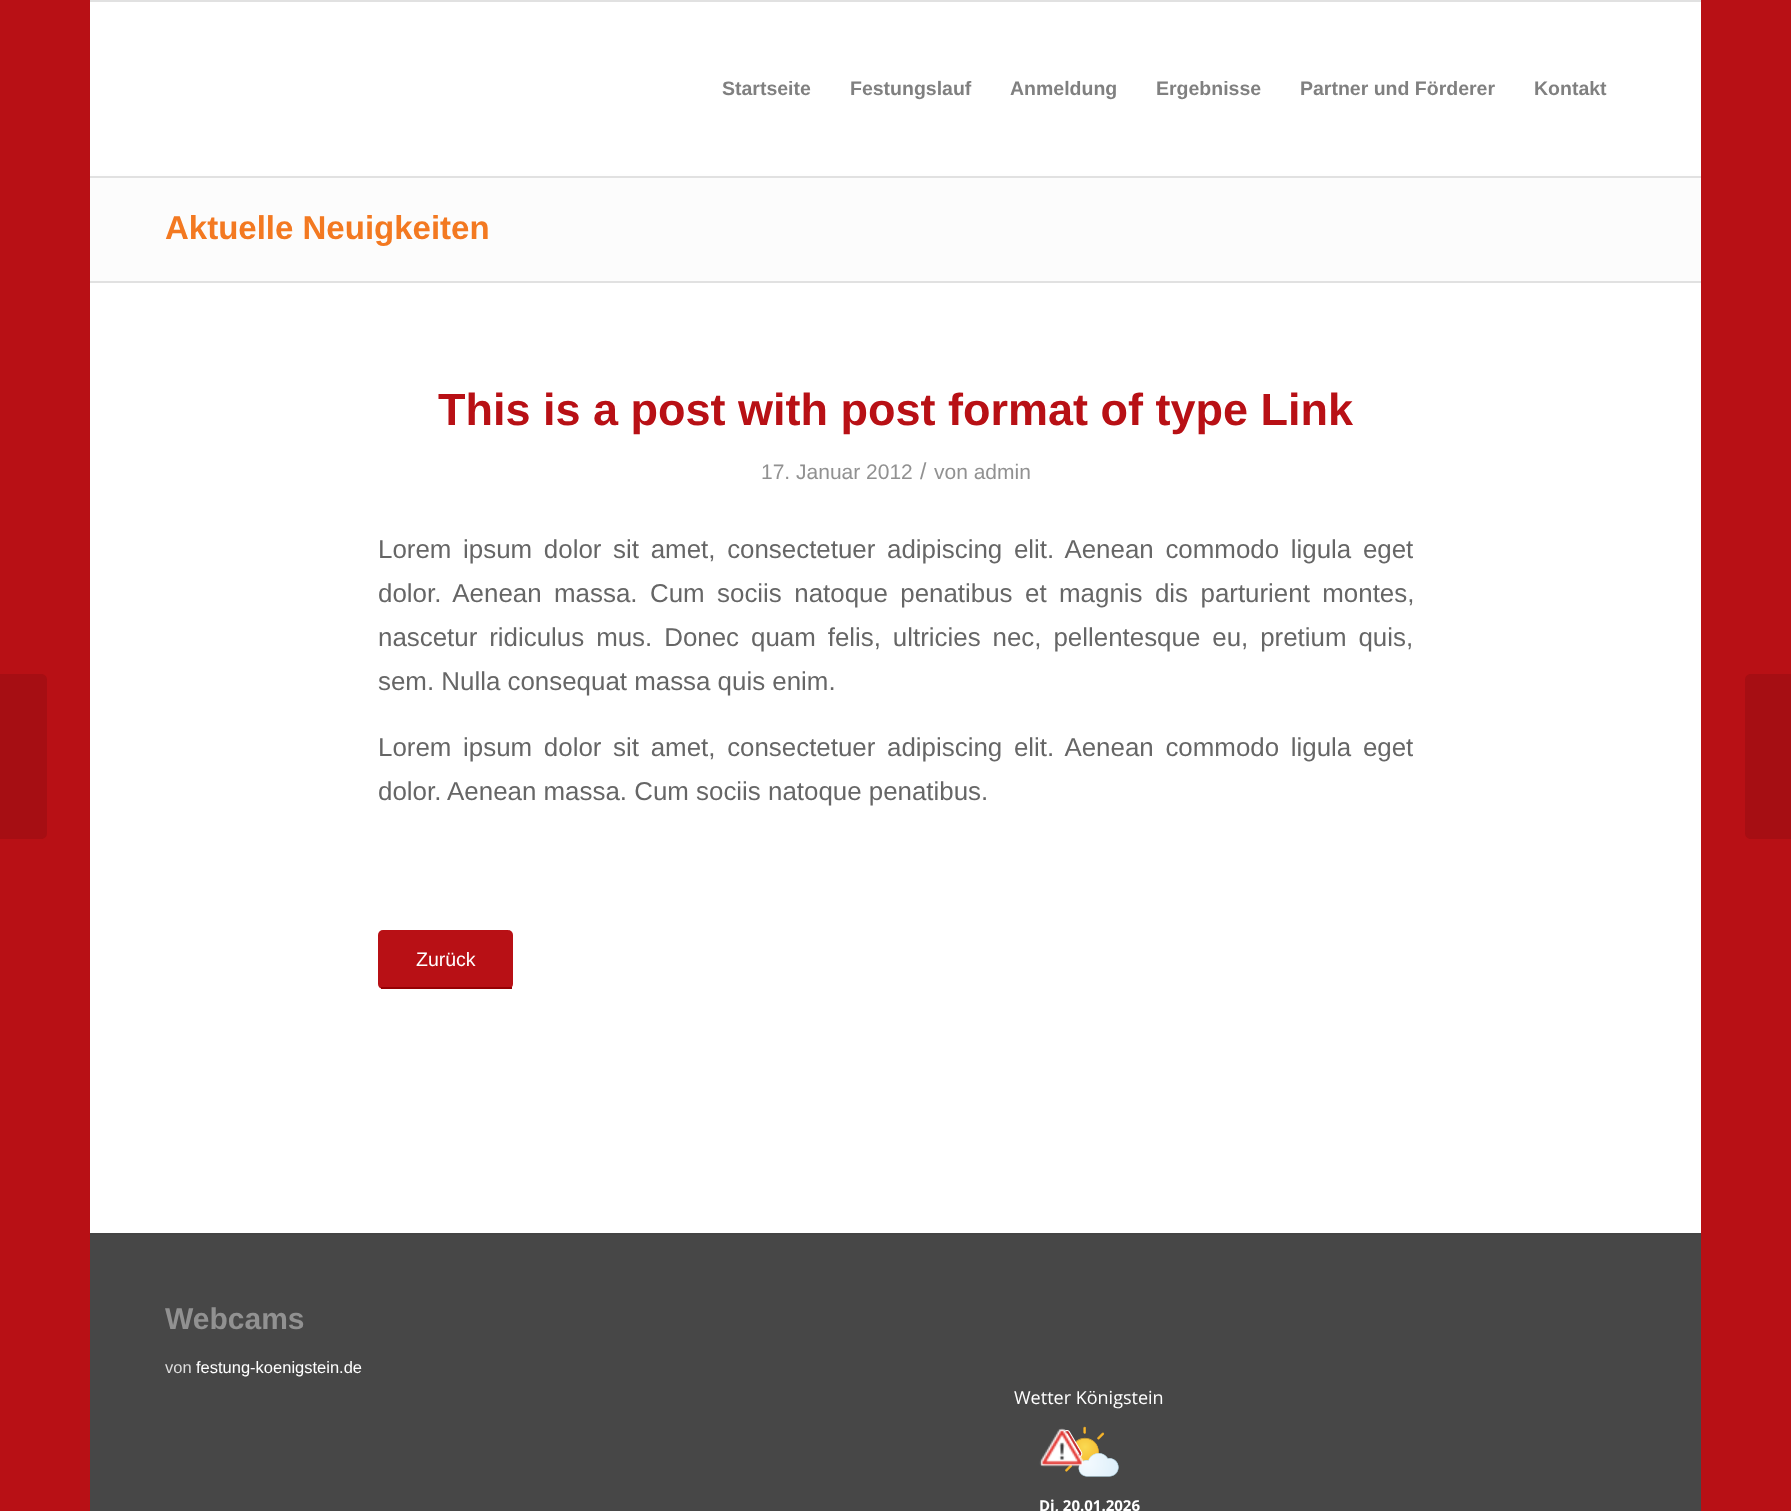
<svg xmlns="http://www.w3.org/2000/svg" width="1791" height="1511">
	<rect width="100%" height="100%" fill="#B81015" />
	<rect x="90" y="0" width="1611" height="2" fill="#E1E1E1" />
	<rect x="90" y="176" width="1611" height="2" fill="#E1E1E1" />
	<rect x="90" y="2" width="1611" height="172" fill="#FFFFFF" />
	<g font-family="Liberation Sans" font-size="19.5" font-weight="700" fill="#808080">
		<text x="722" y="95">Startseite</text>
		<text x="850" y="95">Festungslauf</text>
		<text x="1010" y="95">Anmeldung</text>
		<text x="1156" y="95">Ergebnisse</text>
		<text x="1300" y="95">Partner und Förderer</text>
		<text x="1534" y="95">Kontakt</text>
	</g>
	<path d="M0 674H41C44.5 674 47 676.5 47 680V833C47 836.5 44.5 839 41 839H0Z" fill="#A60E13" />
	<rect x="90" y="283" width="1611" height="950" fill="#FFFFFF" />
	<rect x="90" y="178" width="1611" height="103" fill="#FCFCFC" />
	<rect x="90" y="174" width="1611" height="2" fill="#FEFEFE" />
	<text x="165" y="239" font-family="Liberation Sans" font-size="33" font-weight="700" fill="#F37921">Aktuelle Neuigkeiten</text>
	<rect x="90" y="281" width="1611" height="2" fill="#E1E1E1" />
	<text x="438" y="425" font-family="Liberation Sans" font-size="45" font-weight="700" fill="#B81015">This is a post with post format of type Link</text>
	<text x="761" y="479" font-family="Liberation Sans" font-size="21" fill="#919191">17. Januar 2012</text>
	<text x="920" y="479" font-family="Liberation Sans" font-size="23" fill="#919191">/</text>
	<text x="934" y="479" font-family="Liberation Sans" font-size="21" fill="#919191">von admin</text>
	<g font-family="Liberation Sans" font-size="25.9" fill="#666666">
		<text x="378" y="558" word-spacing="4.5">Lorem ipsum dolor sit amet, consectetuer adipiscing elit. Aenean commodo ligula eget</text>
		<text x="378" y="602" word-spacing="5.25">dolor. Aenean massa. Cum sociis natoque penatibus et magnis dis parturient montes,</text>
		<text x="378" y="646" word-spacing="4.75">nascetur ridiculus mus. Donec quam felis, ultricies nec, pellentesque eu, pretium quis,</text>
		<text x="378" y="690">sem. Nulla consequat massa quis enim.</text>
		<text x="378" y="756" word-spacing="4.5">Lorem ipsum dolor sit amet, consectetuer adipiscing elit. Aenean commodo ligula eget</text>
		<text x="378" y="800">dolor. Aenean massa. Cum sociis natoque penatibus.</text>
	</g>
	<rect x="378" y="930" width="135" height="59" rx="5" fill="#B81015" />
	<rect x="381" y="987" width="131" height="2" fill="#960003" />
	<text x="416" y="966" font-family="Liberation Sans" font-size="19.5" fill="#FFFFFF">Zurück</text>
	<rect x="90" y="1235" width="1611" height="276" fill="#474747" />
	<rect x="90" y="1233" width="1611" height="2" fill="#444444" />
	<text x="165" y="1329" font-family="Liberation Sans" font-size="30" font-weight="700" fill="#919191">Webcams</text>
	<text x="165" y="1373" font-family="Liberation Sans" font-size="16.5" fill="#DDDDDD">von</text>
	<text x="196" y="1373" font-family="Liberation Sans" font-size="16.5" fill="#FFFFFF">festung-koenigstein.de</text>
	<text x="1014" y="1404" font-family="Open Sans" font-size="18" fill="#FFFFFF">Wetter Königstein</text>
	<image x="1063" y="1426" width="56" height="51" href="assets/img2.png" />
	<image x="1039" y="1428" width="45" height="39" href="assets/img1.png" />
	<text x="1039" y="1511" font-family="Open Sans" font-size="15" font-weight="700" fill="#FFFFFF">Di, 20.01.2026</text>
	<path d="M1751 674H1791V839H1751C1747.5 839 1745 836.5 1745 833V680C1745 676.5 1747.5 674 1751 674Z" fill="#A60E13" />
</svg>
